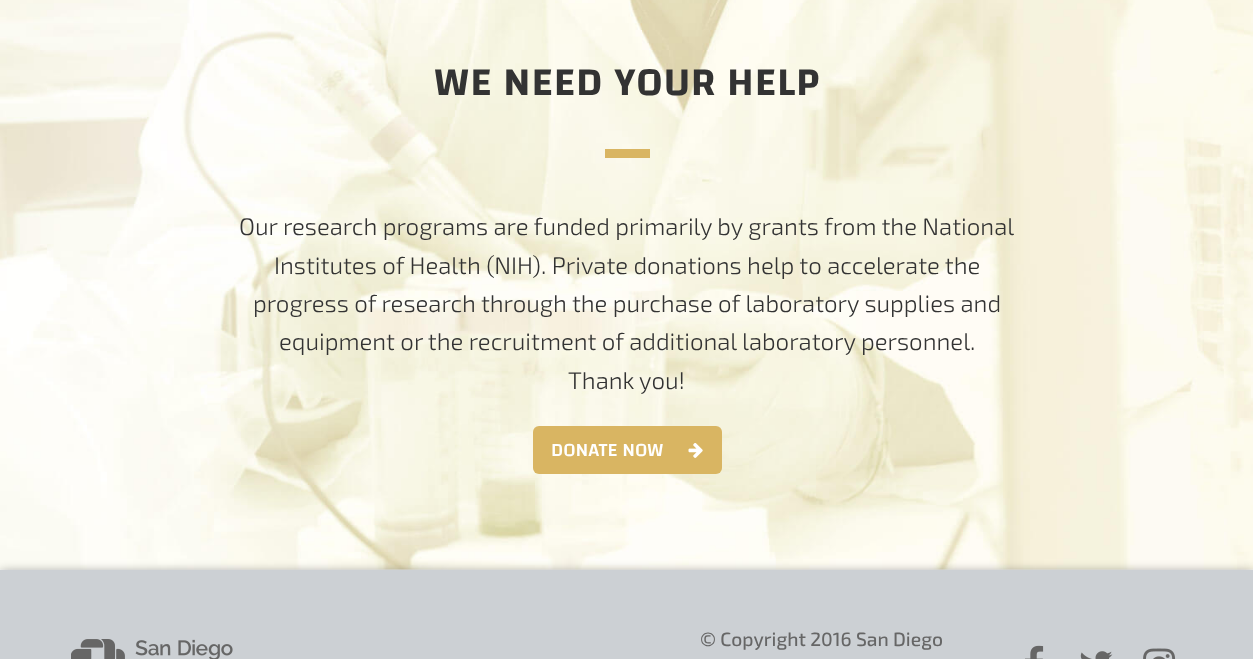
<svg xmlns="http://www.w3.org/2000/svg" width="1253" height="659">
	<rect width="100%" height="100%" fill="#FFFFFF" />
	<image x="0" y="0" width="1253" height="570" href="assets/img1.png" />
	<text x="434" y="95" font-family="Changa" font-size="40.75" font-weight="600" letter-spacing="1.25" fill="#333333">WE NEED YOUR HELP</text>
	<rect x="605" y="149" width="45" height="9" fill="#D9B562" />
	<g font-family="'Exo 2'" font-size="24" font-weight="300" fill="#333333">
		<text x="239" y="235">Our research programs are funded primarily by grants from the National</text>
		<text x="274" y="274">Institutes of Health (NIH). Private donations help to accelerate the</text>
		<text x="253" y="312">progress of research through the purchase of laboratory supplies and</text>
		<text x="279" y="350">equipment or the recruitment of additional laboratory personnel.</text>
		<text x="568" y="389">Thank you!</text>
	</g>
	<rect x="533" y="426" width="189" height="48" rx="6" fill="#D9B562" />
	<text x="551" y="456" font-family="Changa" font-size="19.25" font-weight="500" fill="#FFFFFF">DONATE NOW</text>
	<image x="688" y="443" width="15" height="15" href="assets/img2.png" />
	<rect x="0" y="573" width="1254" height="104" fill="#000000" fill-opacity="0.5" filter="blur(6px)" />
	<rect x="0" y="570" width="1253" height="89" fill="#CCD0D4" />
	<image x="71" y="639" width="162" height="20" href="assets/img3.png" />
	<text x="700" y="646" font-family="'Exo 2'" font-size="19.25" font-weight="500" fill="#666666">© Copyright 2016 San Diego</text>
	<image x="1025" y="645" width="19" height="14" href="assets/img4.png" />
	<image x="1080" y="651" width="33" height="8" href="assets/img5.png" />
	<image x="1143" y="648" width="33" height="11" href="assets/img6.png" />
</svg>
